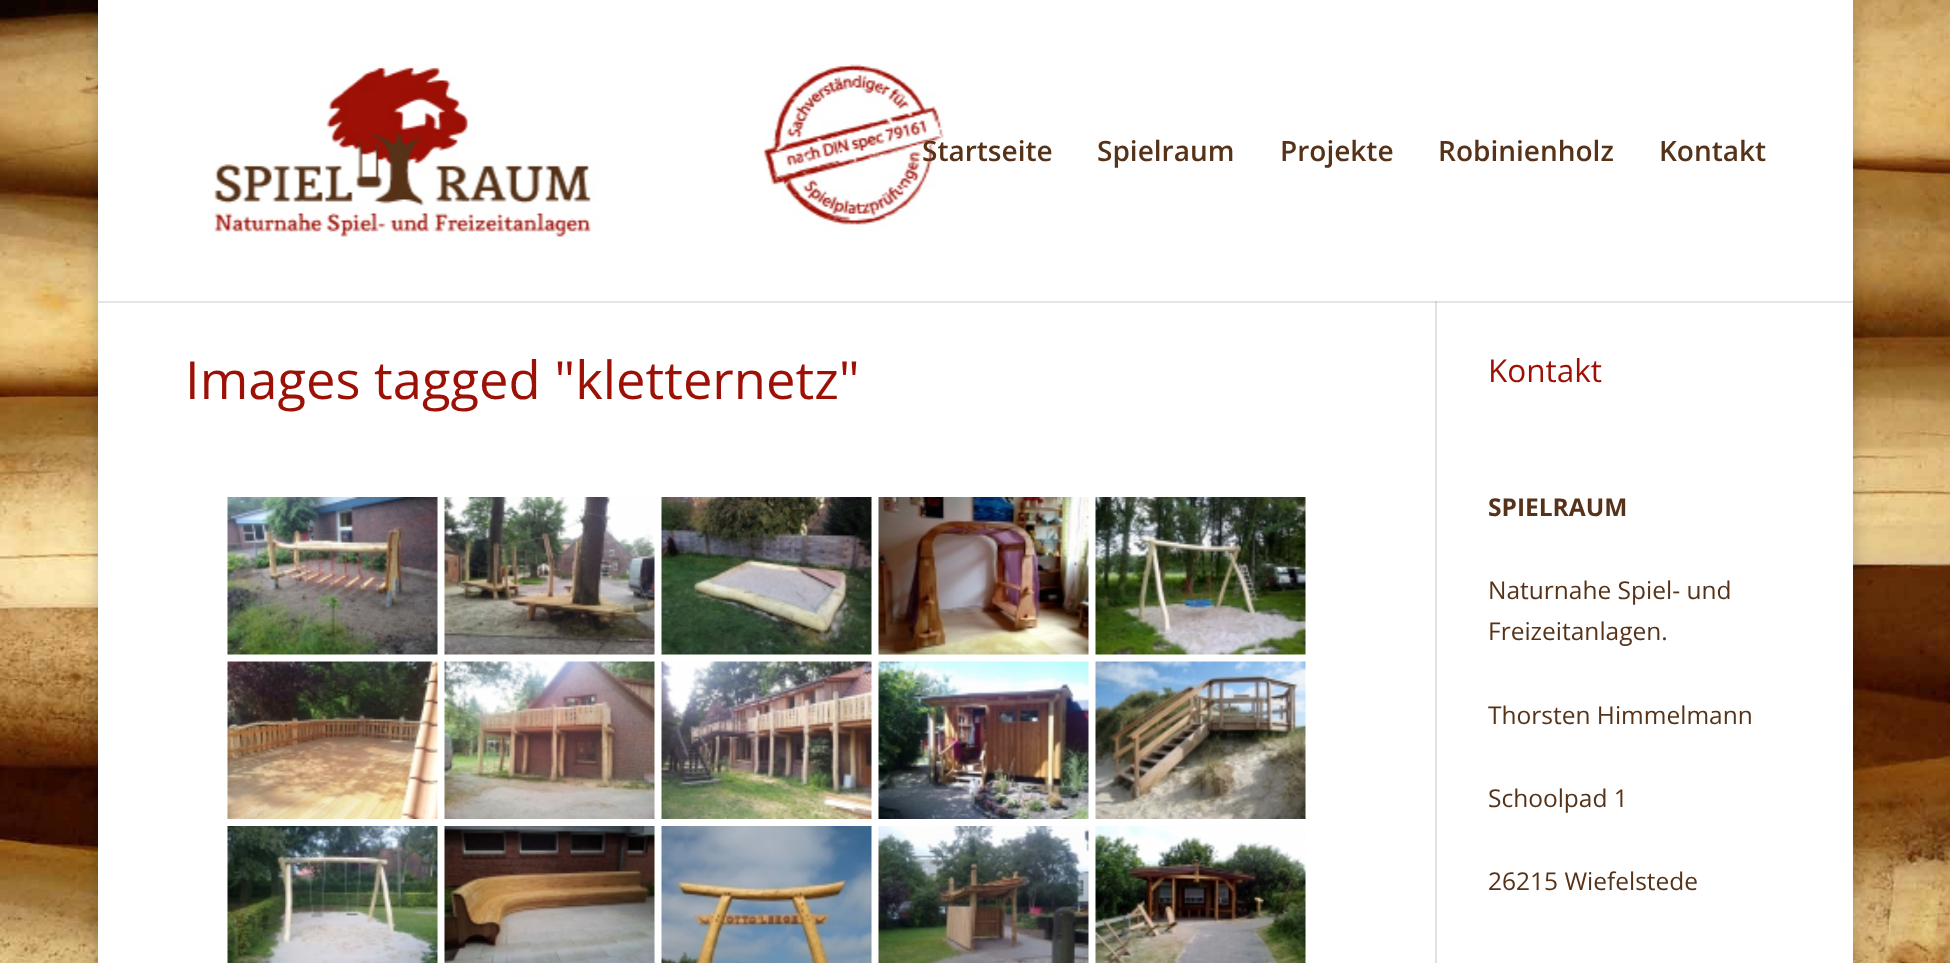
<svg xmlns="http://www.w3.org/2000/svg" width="1950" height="963">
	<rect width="100%" height="100%" fill="#FFFFFF" />
	<image x="0" y="0" width="1950" height="963" href="assets/img1.png" />
	<rect x="98" y="0" width="1755" height="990" fill="#000000" fill-opacity="0.2" filter="blur(9px)" />
	<rect x="98" y="0" width="1755" height="963" fill="#FFFFFF" />
	<rect x="1435" y="301" width="2" height="662" fill="#E2E2E2" />
	<rect x="98" y="301" width="1755" height="2" fill="#000000" fill-opacity="0.1" />
	<image x="214" y="63" width="730" height="174" href="assets/img2.png" />
	<g font-family="Open Sans" font-size="28" font-weight="600" fill="#563218">
		<text x="922" y="161">Startseite</text>
		<text x="1097" y="161">Spielraum</text>
		<text x="1280" y="161">Projekte</text>
		<text x="1438" y="161">Robinienholz</text>
		<text x="1659" y="161">Kontakt</text>
	</g>
	<text x="185" y="399" font-family="Open Sans" font-size="52.5" fill="#9C1006">Images tagged "kletternetz"</text>
	<image x="227" y="497" width="211" height="158" href="assets/img3.png" />
	<image x="444" y="497" width="211" height="158" href="assets/img4.png" />
	<image x="661" y="497" width="211" height="158" href="assets/img5.png" />
	<image x="878" y="497" width="211" height="158" href="assets/img6.png" />
	<image x="1095" y="497" width="211" height="158" href="assets/img7.png" />
	<image x="227" y="661" width="211" height="158" href="assets/img8.png" />
	<image x="444" y="661" width="211" height="158" href="assets/img9.png" />
	<image x="661" y="661" width="211" height="158" href="assets/img10.png" />
	<image x="878" y="661" width="211" height="158" href="assets/img11.png" />
	<image x="1095" y="661" width="211" height="158" href="assets/img12.png" />
	<image x="227" y="826" width="211" height="137" href="assets/img13.png" />
	<image x="444" y="826" width="211" height="137" href="assets/img14.png" />
	<image x="661" y="826" width="211" height="137" href="assets/img15.png" />
	<image x="878" y="826" width="211" height="137" href="assets/img16.png" />
	<image x="1095" y="826" width="211" height="137" href="assets/img17.png" />
	<text x="1488" y="382" font-family="Open Sans" font-size="31.5" fill="#9C1006">Kontakt</text>
	<text x="1488" y="516" font-family="Open Sans" font-size="24.5" font-weight="700" fill="#563218">SPIELRAUM</text>
	<g font-family="Open Sans" font-size="24.5" fill="#563218">
		<text x="1488" y="599">Naturnahe Spiel- und</text>
		<text x="1488" y="640">Freizeitanlagen.</text>
		<text x="1488" y="724">Thorsten Himmelmann</text>
		<text x="1488" y="807">Schoolpad 1</text>
		<text x="1488" y="890">26215 Wiefelstede</text>
	</g>
</svg>
